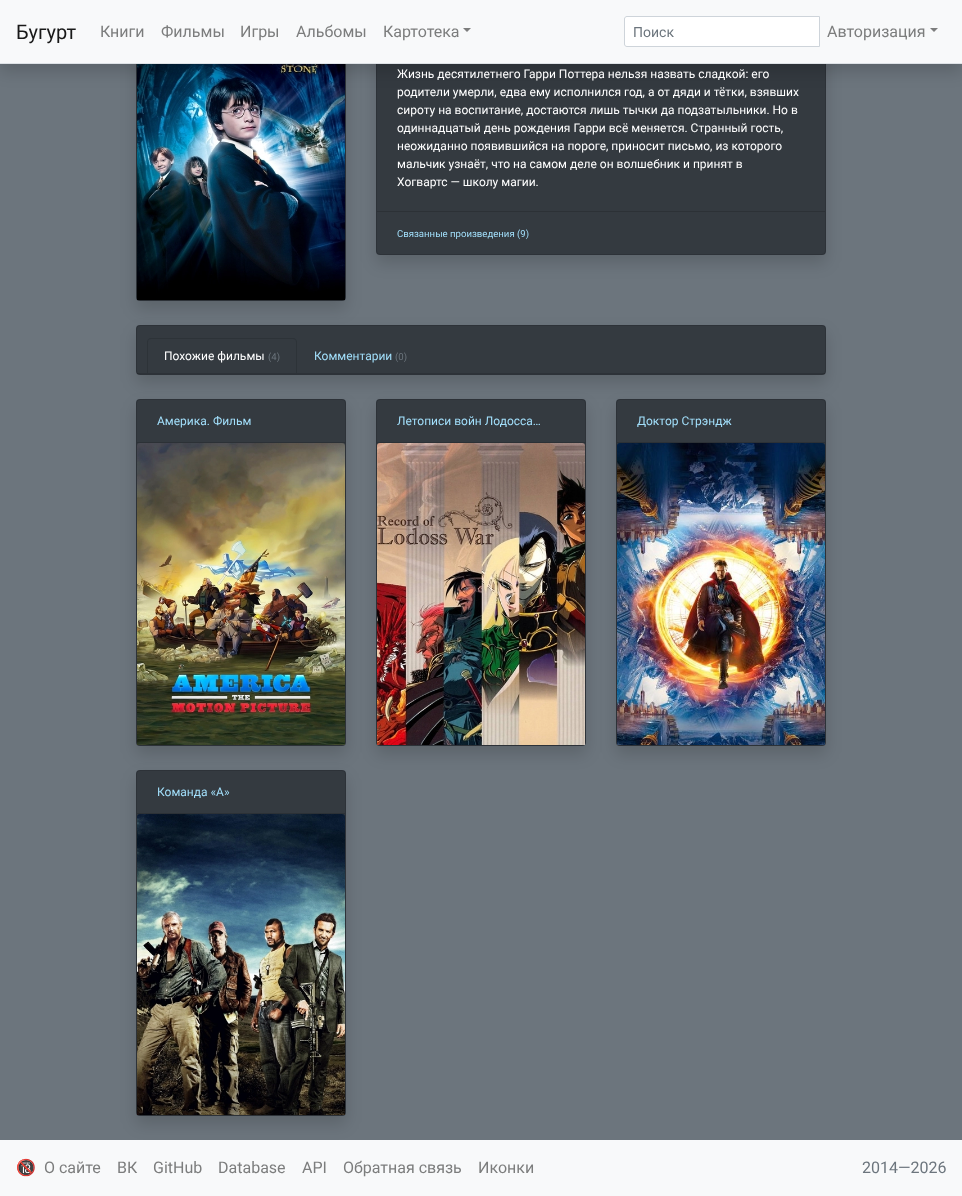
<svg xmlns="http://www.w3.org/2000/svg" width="962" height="1196">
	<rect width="100%" height="100%" fill="#F8F9FA" />
	<rect x="0" y="64" width="962" height="1076" fill="#6C757D" />
	<rect x="136" y="4" width="210" height="305" rx="4" fill="#000000" fill-opacity="0.15" filter="blur(8px)" />
	<rect x="136" y="-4" width="210" height="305" rx="4" fill="#343A40" />
	<rect x="136.5" y="-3.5" width="209" height="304" rx="3.5" fill="none" stroke="#000000" stroke-opacity="0.12" />
	<image x="137" y="64" width="208" height="236" href="assets/img1.png" />
	<rect x="376" y="4" width="450" height="259" rx="4" fill="#000000" fill-opacity="0.15" filter="blur(8px)" />
	<rect x="376" y="-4" width="450" height="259" rx="4" fill="#343A40" />
	<rect x="376.5" y="-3.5" width="449" height="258" rx="3.5" fill="none" stroke="#000000" stroke-opacity="0.12" />
	<rect x="0" y="8" width="962" height="64" fill="#000000" fill-opacity="0.15" filter="blur(8px)" />
	<rect x="0" y="0" width="962" height="63" fill="#F8F9FA" />
	<rect x="0" y="63" width="962" height="1" fill="#DEE2E6" />
	<text x="16" y="39" font-family="Roboto" font-size="20" fill="#191919">Бугурт</text>
	<g font-family="Roboto" font-size="16" fill="#7C7D7D">
		<text x="100" y="37">Книги</text>
		<text x="161" y="37">Фильмы</text>
		<text x="240" y="37">Игры</text>
		<text x="296" y="37">Альбомы</text>
		<text x="383" y="37">Картотека</text>
	</g>
	<path d="M463 28H471L467 32Z" fill="#7C7D7D" />
	<path d="M627 16.5H819.5V46.5H627C625.5 46.5 624.5 45.5 624.5 44V19C624.5 17.5 625.5 16.5 627 16.5Z" fill="#FFFFFF" stroke="#CED4DA" />
	<text x="633" y="37" font-family="Roboto" font-size="14" fill="#6C757D">Поиск</text>
	<text x="827" y="37" font-family="Roboto" font-size="16" fill="#7C7D7D">Авторизация</text>
	<path d="M930 28H938L934 32Z" fill="#7C7D7D" />
	<g font-family="Roboto" font-size="12" fill="#FFFFFF">
		<text x="397" y="78">Жизнь десятилетнего Гарри Поттера нельзя назвать сладкой: его</text>
		<text x="397" y="96">родители умерли, едва ему исполнился год, а от дяди и тётки, взявших</text>
		<text x="397" y="114">сироту на воспитание, достаются лишь тычки да подзатыльники. Но в</text>
		<text x="397" y="132">одиннадцатый день рождения Гарри всё меняется. Странный гость,</text>
		<text x="397" y="150">неожиданно появившийся на пороге, приносит письмо, из которого</text>
		<text x="397" y="168">мальчик узнаёт, что на самом деле он волшебник и принят в</text>
		<text x="397" y="186">Хогвартс — школу магии.</text>
	</g>
	<rect x="377" y="211" width="448" height="1" fill="#2C3136" />
	<text x="397" y="237" font-family="Roboto" font-size="9.6" fill="#A2DFFB">Связанные произведения (9)</text>
	<rect x="136" y="333" width="690" height="50" rx="4" fill="#000000" fill-opacity="0.15" filter="blur(8px)" />
	<rect x="136" y="325" width="690" height="50" rx="4" fill="#343A40" />
	<rect x="136.5" y="325.5" width="689" height="49" rx="3.5" fill="none" stroke="#000000" stroke-opacity="0.12" />
	<rect x="137" y="373" width="688" height="1" fill="#000000" fill-opacity="0.12" />
	<path d="M151 338H293C295 338 297 340 297 342V373H147V342C147 340 149 338 151 338ZM151 339H293C295 339 296 340 296 342V373H148V342C148 340 149 339 151 339Z" fill="#2D3338" fill-rule="evenodd" />
	<text x="164" y="360" font-family="Roboto" font-size="12" fill="#FFFFFF">Похожие фильмы</text>
	<text x="268" y="360" font-family="Roboto" font-size="9.6" fill="#6C757D">(4)</text>
	<text x="314" y="360" font-family="Roboto" font-size="12" fill="#A2DFFB">Комментарии</text>
	<text x="395" y="360" font-family="Roboto" font-size="9.6" fill="#6C757D">(0)</text>
	<rect x="136" y="407" width="210" height="347" rx="4" fill="#000000" fill-opacity="0.15" filter="blur(8px)" />
	<rect x="136" y="399" width="210" height="347" rx="4" fill="#343A40" />
	<rect x="136.5" y="399.5" width="209" height="346" rx="3.5" fill="none" stroke="#000000" stroke-opacity="0.12" />
	<rect x="137" y="442" width="208" height="1" fill="#2C3136" />
	<text x="157" y="425" font-family="Roboto" font-size="12" fill="#A2DFFB">Америка. Фильм</text>
	<image x="137" y="443" width="208" height="302" href="assets/img2.png" />
	<rect x="376" y="407" width="210" height="347" rx="4" fill="#000000" fill-opacity="0.15" filter="blur(8px)" />
	<rect x="376" y="399" width="210" height="347" rx="4" fill="#343A40" />
	<rect x="376.5" y="399.5" width="209" height="346" rx="3.5" fill="none" stroke="#000000" stroke-opacity="0.12" />
	<rect x="377" y="442" width="208" height="1" fill="#2C3136" />
	<text x="397" y="425" font-family="Roboto" font-size="12" fill="#A2DFFB">Летописи войн Лодосса…</text>
	<image x="377" y="443" width="208" height="302" href="assets/img3.png" />
	<rect x="616" y="407" width="210" height="347" rx="4" fill="#000000" fill-opacity="0.15" filter="blur(8px)" />
	<rect x="616" y="399" width="210" height="347" rx="4" fill="#343A40" />
	<rect x="616.5" y="399.5" width="209" height="346" rx="3.5" fill="none" stroke="#000000" stroke-opacity="0.12" />
	<rect x="617" y="442" width="208" height="1" fill="#2C3136" />
	<text x="637" y="425" font-family="Roboto" font-size="12" fill="#A2DFFB">Доктор Стрэндж</text>
	<image x="617" y="443" width="208" height="302" href="assets/img4.png" />
	<rect x="136" y="778" width="210" height="346" rx="4" fill="#000000" fill-opacity="0.15" filter="blur(8px)" />
	<rect x="136" y="770" width="210" height="346" rx="4" fill="#343A40" />
	<rect x="136.5" y="770.5" width="209" height="345" rx="3.5" fill="none" stroke="#000000" stroke-opacity="0.12" />
	<rect x="137" y="813" width="208" height="1" fill="#2C3136" />
	<text x="157" y="796" font-family="Roboto" font-size="12" fill="#A2DFFB">Команда «А»</text>
	<image x="137" y="814" width="208" height="301" href="assets/img5.png" />
	<text x="16" y="1173" font-family="Noto Color Emoji" font-size="16" fill="#6C757D">🔞</text>
	<g font-family="Roboto" font-size="16" fill="#7C7D7D">
		<text x="44" y="1173">О сайте</text>
		<text x="117" y="1173">ВК</text>
		<text x="153" y="1173">GitHub</text>
		<text x="218" y="1173">Database</text>
		<text x="302" y="1173">API</text>
		<text x="343" y="1173">Обратная связь</text>
		<text x="478" y="1173">Иконки</text>
	</g>
	<text x="862" y="1173" font-family="Roboto" font-size="16" fill="#6C757D">2014—2026</text>
</svg>
